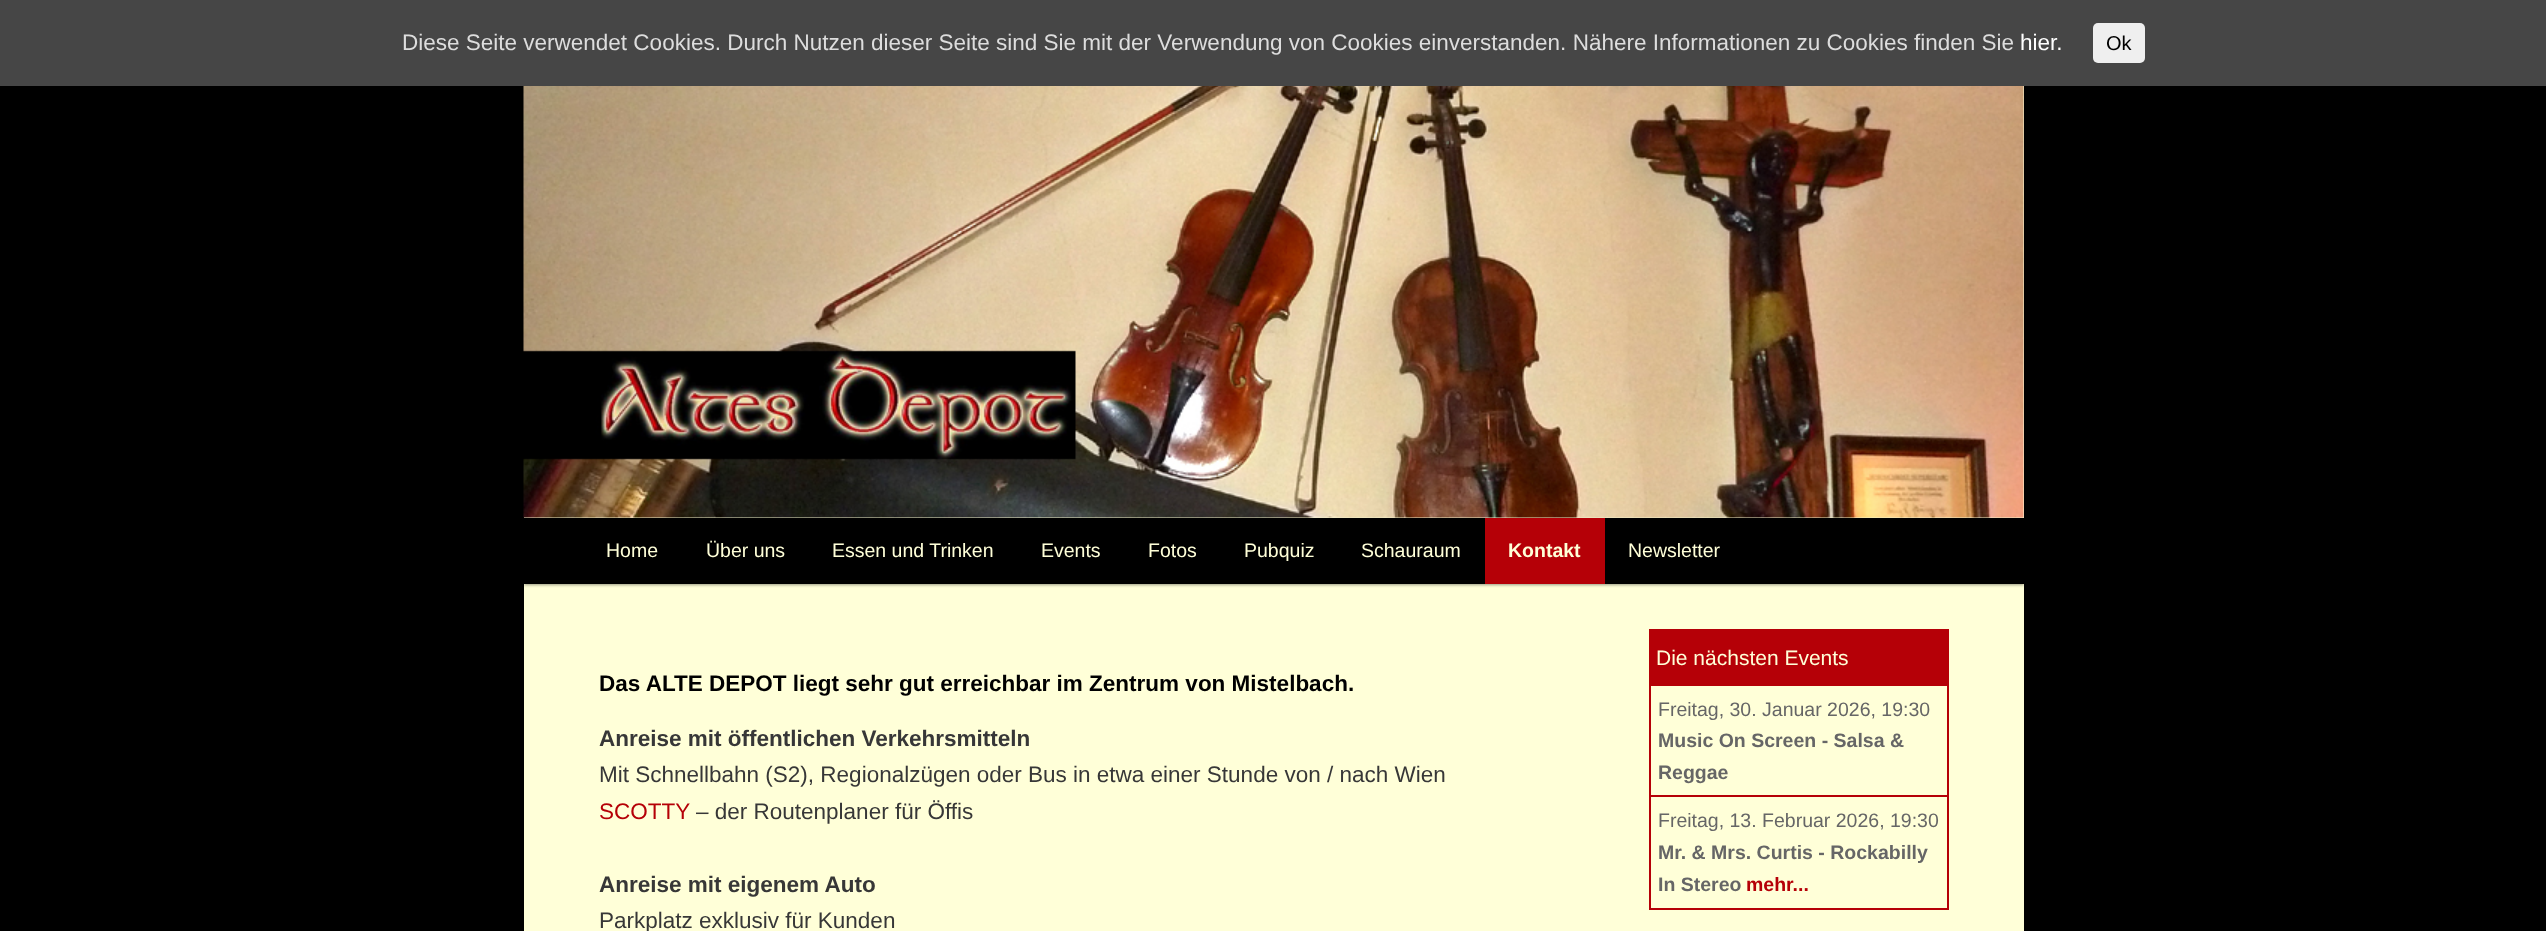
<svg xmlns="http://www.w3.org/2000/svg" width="2546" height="931">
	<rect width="100%" height="100%" fill="#000000" />
	<rect x="0" y="0" width="2546" height="86" fill="#464646" />
	<text x="402" y="50" font-family="Liberation Sans" font-size="22.5" fill="#DDDDDD">Diese Seite verwendet Cookies. Durch Nutzen dieser Seite sind Sie mit der Verwendung von Cookies einverstanden. Nähere Informationen zu Cookies finden Sie</text>
	<text x="2020" y="50" font-family="Liberation Sans" font-size="22.5" fill="#FFFFFF">hier.</text>
	<rect x="2093" y="23" width="52" height="40" rx="5" fill="#EFEFEF" />
	<text x="2106" y="50" font-family="Liberation Sans" font-size="20" fill="#000000">Ok</text>
	<rect x="524" y="86" width="1500" height="845" fill="#FFFFD8" />
	<rect x="524" y="519" width="1500" height="66" fill="#000000" fill-opacity="0.4" filter="blur(1.5px)" />
	<image x="523" y="86" width="1501" height="432" href="assets/img1.png" />
	<rect x="524" y="518" width="1500" height="66" fill="#000000" />
	<g font-family="Liberation Sans" font-size="19.5" fill="#FFFFD8">
		<text x="606" y="557">Home</text>
		<text x="706" y="557">Über uns</text>
		<text x="832" y="557">Essen und Trinken</text>
		<text x="1041" y="557">Events</text>
		<text x="1148" y="557">Fotos</text>
		<text x="1244" y="557">Pubquiz</text>
		<text x="1361" y="557">Schauraum</text>
	</g>
	<rect x="1485" y="518" width="120" height="66" fill="#B50007" />
	<text x="1508" y="557" font-family="Liberation Sans" font-size="19.5" font-weight="700" fill="#FFFFD8">Kontakt</text>
	<text x="1628" y="557" font-family="Liberation Sans" font-size="19.5" fill="#FFFFD8">Newsletter</text>
	<text x="599" y="691" font-family="Liberation Sans" font-size="22.5" font-weight="700" fill="#000000">Das ALTE DEPOT liegt sehr gut erreichbar im Zentrum von Mistelbach.</text>
	<text x="599" y="746" font-family="Liberation Sans" font-size="22.5" font-weight="700" fill="#373737">Anreise mit öffentlichen Verkehrsmitteln</text>
	<text x="599" y="782" font-family="Liberation Sans" font-size="22.5" fill="#373737">Mit Schnellbahn (S2), Regionalzügen oder Bus in etwa einer Stunde von / nach Wien</text>
	<text x="599" y="819" font-family="Liberation Sans" font-size="22.5" fill="#B50007">SCOTTY</text>
	<text x="696" y="819" font-family="Liberation Sans" font-size="22.5" fill="#373737">– der Routenplaner für Öffis</text>
	<text x="599" y="892" font-family="Liberation Sans" font-size="22.5" font-weight="700" fill="#373737">Anreise mit eigenem Auto</text>
	<text x="599" y="928" font-family="Liberation Sans" font-size="22.5" fill="#373737">Parkplatz exklusiv für Kunden</text>
	<rect x="1649" y="629" width="300" height="57" fill="#B50007" />
	<text x="1656" y="665" font-family="Liberation Sans" font-size="21" fill="#FFFFD8">Die nächsten Events</text>
	<rect x="1947" y="686" width="2" height="223" fill="#B50007" />
	<rect x="1649" y="795" width="300" height="2" fill="#B50007" />
	<rect x="1649" y="686" width="2" height="111" fill="#B50007" />
	<text x="1658" y="716" font-family="Liberation Sans" font-size="19.5" fill="#666666">Freitag, 30. Januar 2026, 19:30</text>
	<g font-family="Liberation Sans" font-size="19.5" font-weight="700" fill="#666666">
		<text x="1658" y="747">Music On Screen - Salsa &amp;</text>
		<text x="1658" y="779">Reggae</text>
	</g>
	<rect x="1649" y="908" width="300" height="2" fill="#B50007" />
	<rect x="1649" y="797" width="2" height="112" fill="#B50007" />
	<text x="1658" y="827" font-family="Liberation Sans" font-size="19.5" fill="#666666">Freitag, 13. Februar 2026, 19:30</text>
	<g font-family="Liberation Sans" font-size="19.5" font-weight="700" fill="#666666">
		<text x="1658" y="859">Mr. &amp; Mrs. Curtis - Rockabilly</text>
		<text x="1658" y="891">In Stereo</text>
	</g>
	<text x="1746" y="891" font-family="Liberation Sans" font-size="19.5" font-weight="700" fill="#B50007">mehr...</text>
</svg>
